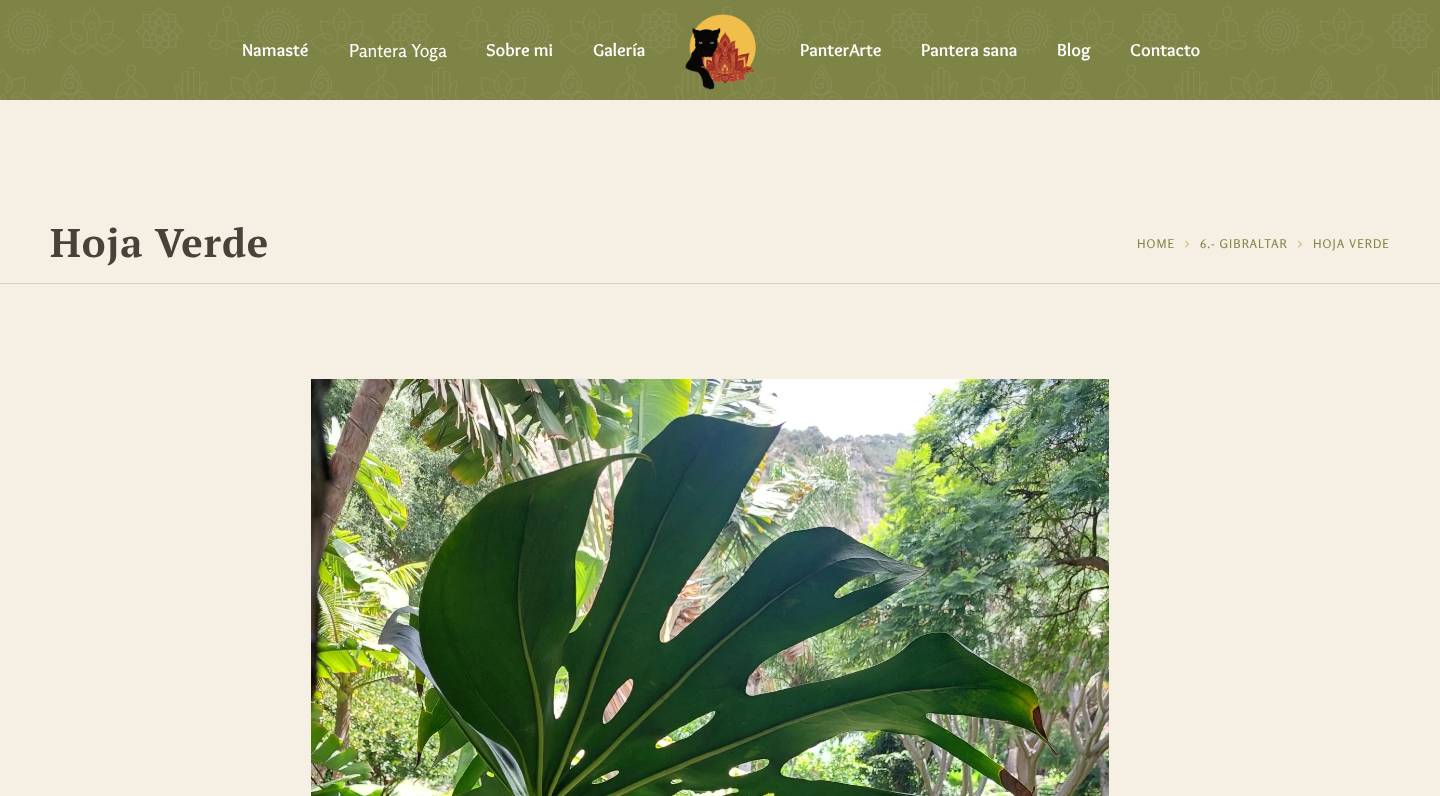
<svg xmlns="http://www.w3.org/2000/svg" width="1440" height="796">
	<rect width="100%" height="100%" fill="#F5F0E3" />
	<rect x="0" y="0" width="1440" height="100" fill="#7E8446" />
	<image x="0" y="6" width="1440" height="94" href="assets/img1.png" />
	<image x="685" y="14" width="71" height="76" href="assets/img2.png" />
	<text x="242" y="56" font-family="Overlock" font-size="18" font-weight="700" fill="#FFFFFF">Namasté</text>
	<text x="349" y="57" font-family="Rosario" font-size="18" fill="#FFFFFF">Pantera Yoga</text>
	<g font-family="Overlock" font-size="18" font-weight="700" fill="#FFFFFF">
		<text x="486" y="56">Sobre mi</text>
		<text x="593" y="56">Galería</text>
		<text x="800" y="56">PanterArte</text>
		<text x="921" y="56">Pantera sana</text>
		<text x="1057" y="56">Blog</text>
		<text x="1130" y="56">Contacto</text>
	</g>
	<rect x="0" y="283" width="1440" height="1" fill="#DDCFB7" />
	<text x="50" y="257" font-family="PT Serif" font-size="40" font-weight="700" letter-spacing="1" fill="#484338">Hoja Verde</text>
	<text x="1137" y="248" font-family="Rosario" font-size="12" letter-spacing="1" fill="#7E8446">HOME</text>
	<image x="1185" y="240" width="4" height="8" href="assets/img3.png" />
	<text x="1200" y="248" font-family="Rosario" font-size="12" letter-spacing="1" fill="#7E8446">6.- GIBRALTAR</text>
	<image x="1298" y="240" width="4" height="8" href="assets/img3.png" />
	<text x="1313" y="248" font-family="Rosario" font-size="12" letter-spacing="1" fill="#7E8446">HOJA VERDE</text>
	<image x="311" y="379" width="798" height="417" href="assets/img4.png" />
</svg>
